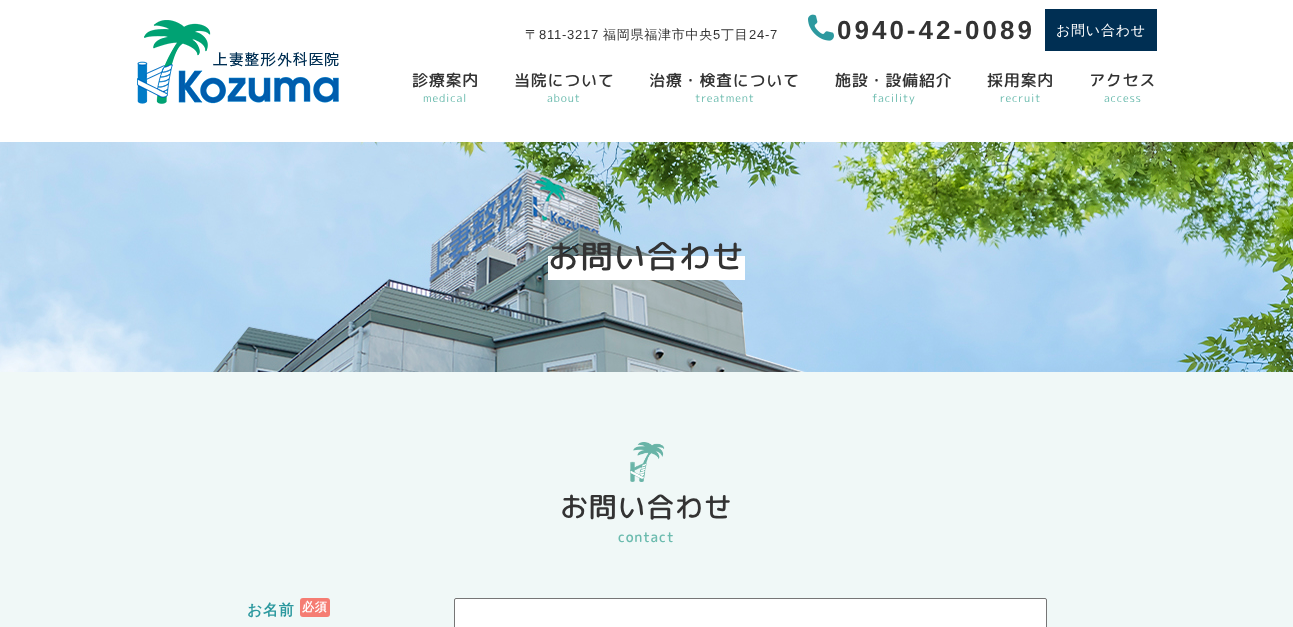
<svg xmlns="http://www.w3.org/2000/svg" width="1293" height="627">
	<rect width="100%" height="100%" fill="#FFFFFF" />
	<image x="137" y="20" width="202" height="84" href="assets/img1.png" />
	<text x="525" y="39" font-family="WenQuanYi Zen Hei" font-size="13" font-weight="500" letter-spacing="0.75" fill="#333333">〒</text>
	<text x="539" y="39" font-family="Liberation Sans" font-size="13" letter-spacing="0.75" fill="#333333">811-3217</text>
	<text x="603" y="39" font-family="WenQuanYi Zen Hei" font-size="13" font-weight="500" letter-spacing="0.75" fill="#333333">福岡県福津市中央</text>
	<text x="713" y="39" font-family="Liberation Sans" font-size="13" letter-spacing="0.75" fill="#333333">5</text>
	<text x="721" y="39" font-family="WenQuanYi Zen Hei" font-size="13" font-weight="500" letter-spacing="0.75" fill="#333333">丁目</text>
	<text x="749" y="39" font-family="Liberation Sans" font-size="13" letter-spacing="0.75" fill="#333333">24-7</text>
	<image x="808" y="14" width="26" height="27" href="assets/img2.png" />
	<text x="837" y="39" font-family="Liberation Sans" font-size="26" font-weight="700" letter-spacing="3" fill="#333333">0940-42-0089</text>
	<rect x="1045" y="9" width="112" height="42" fill="#002F53" />
	<text x="1056" y="35" font-family="WenQuanYi Zen Hei" font-size="14" font-weight="500" letter-spacing="0.75" fill="#FFFFFF">お問い合わせ</text>
	<text x="412" y="86" transform="rotate(0.1 412 86)" font-family="'Rounded Mplus 1c'" font-size="16" font-weight="500" letter-spacing="0.75" fill="#333333">診療案内</text>
	<text x="423" y="102" transform="rotate(0.1 423 102)" font-family="'Rounded Mplus 1c'" font-size="11" letter-spacing="0.75" fill="#6BBBAE">medical</text>
	<text x="514" y="86" transform="rotate(0.1 514 86)" font-family="'Rounded Mplus 1c'" font-size="16" font-weight="500" letter-spacing="0.75" fill="#333333">当院について</text>
	<text x="547" y="102" transform="rotate(0.1 547 102)" font-family="'Rounded Mplus 1c'" font-size="11" letter-spacing="0.75" fill="#6BBBAE">about</text>
	<text x="649" y="86" transform="rotate(0.1 649 86)" font-family="'Rounded Mplus 1c'" font-size="16" font-weight="500" letter-spacing="0.75" fill="#333333">治療・検査について</text>
	<text x="695" y="102" transform="rotate(0.1 695 102)" font-family="'Rounded Mplus 1c'" font-size="11" letter-spacing="0.75" fill="#6BBBAE">treatment</text>
	<text x="835" y="86" transform="rotate(0.1 835 86)" font-family="'Rounded Mplus 1c'" font-size="16" font-weight="500" letter-spacing="0.75" fill="#333333">施設・設備紹介</text>
	<text x="872" y="102" transform="rotate(0.1 872 102)" font-family="'Rounded Mplus 1c'" font-size="11" letter-spacing="0.75" fill="#6BBBAE">facility</text>
	<text x="987" y="86" transform="rotate(0.1 987 86)" font-family="'Rounded Mplus 1c'" font-size="16" font-weight="500" letter-spacing="0.75" fill="#333333">採用案内</text>
	<text x="1000" y="102" transform="rotate(0.1 1000 102)" font-family="'Rounded Mplus 1c'" font-size="11" letter-spacing="0.75" fill="#6BBBAE">recruit</text>
	<text x="1089" y="86" transform="rotate(0.1 1089 86)" font-family="'Rounded Mplus 1c'" font-size="16" font-weight="500" letter-spacing="0.75" fill="#333333">アクセス</text>
	<text x="1104" y="102" transform="rotate(0.1 1104 102)" font-family="'Rounded Mplus 1c'" font-size="11" letter-spacing="0.75" fill="#6BBBAE">access</text>
	<image x="0" y="142" width="1293" height="230" href="assets/img3.png" />
	<rect x="548" y="256" width="197" height="24" fill="#FFFFFF" />
	<text x="548" y="268" font-family="'Rounded Mplus 1c'" font-size="32" font-weight="500" letter-spacing="0.75" fill="#333333">お問い合わせ</text>
	<rect x="0" y="372" width="1293" height="255" fill="#F0F8F7" />
	<image x="630" y="442" width="35" height="40" href="assets/img4.png" />
	<text x="560" y="517" transform="rotate(0.1 560 517)" font-family="'Rounded Mplus 1c'" font-size="28" font-weight="500" letter-spacing="0.75" fill="#333333">お問い合わせ</text>
	<text x="618" y="542" transform="rotate(0.1 618 542)" font-family="'Rounded Mplus 1c'" font-size="14" font-weight="500" letter-spacing="0.75" fill="#6BBBAE">contact</text>
	<text x="247" y="615" font-family="WenQuanYi Zen Hei" font-size="15" font-weight="700" letter-spacing="0.75" fill="#2D999F">お名前</text>
	<rect x="300" y="598" width="30" height="19" rx="3" fill="#F57D73" />
	<text x="302" y="611" font-family="WenQuanYi Zen Hei" font-size="12" font-weight="700" letter-spacing="0.75" fill="#FFFFFF">必須</text>
	<rect x="454.5" y="598.5" width="592" height="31" rx="1.5" fill="#FFFFFF" stroke="#767676" />
</svg>
